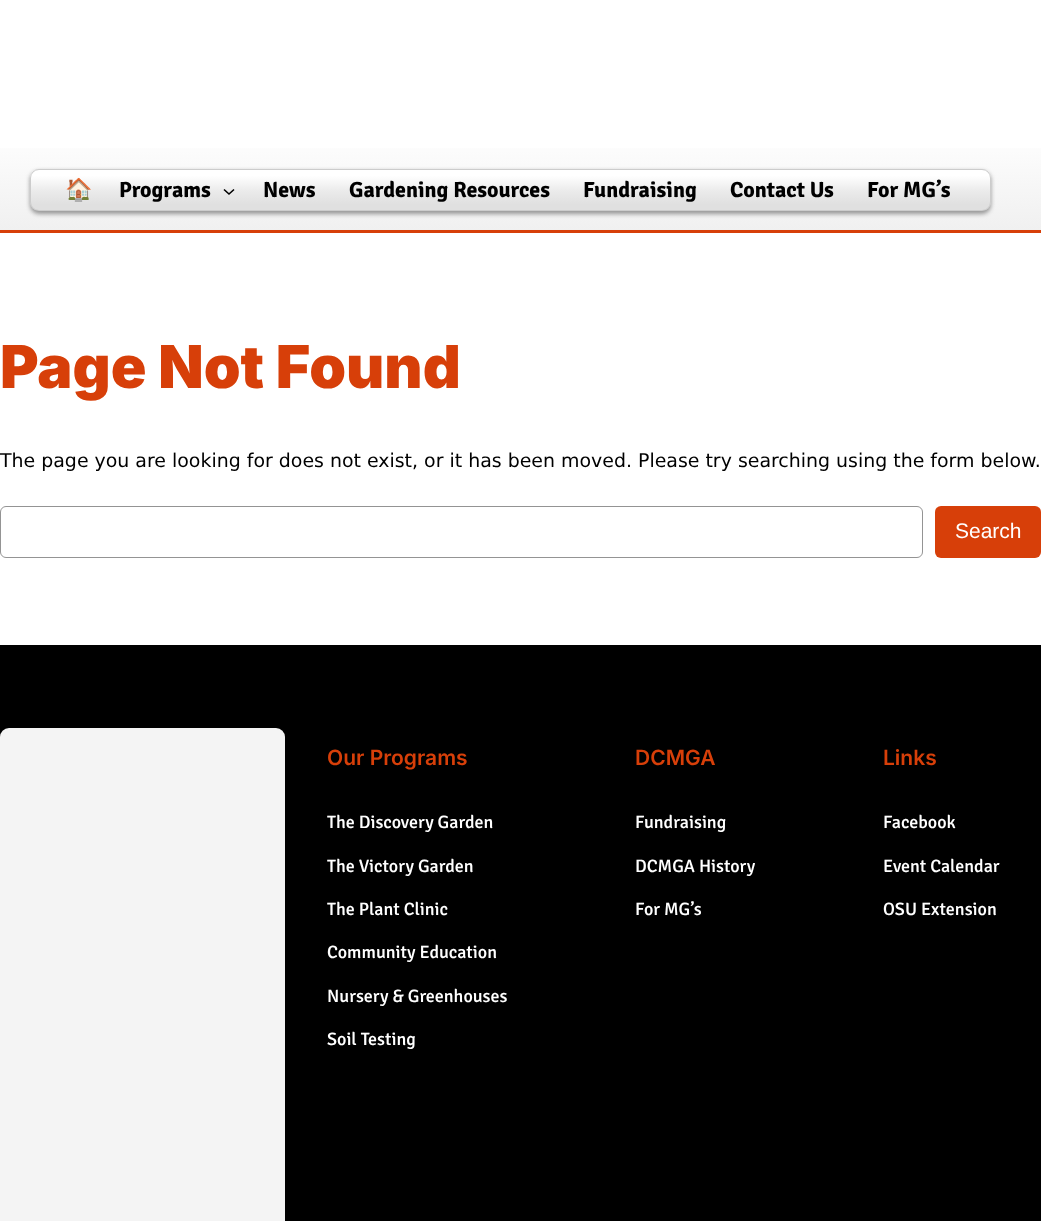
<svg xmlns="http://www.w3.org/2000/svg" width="1041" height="1221">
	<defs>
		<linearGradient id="g1" gradientUnits="userSpaceOnUse" x1="521" y1="0" x2="521" y2="230"><stop offset="0.57" stop-color="#FFFFFF" /><stop offset="1" stop-color="#F0F0F0" /></linearGradient>
		<clipPath id="clip1"><rect x="30" y="169" width="961" height="42" rx="9" /></clipPath>
		<linearGradient id="g2" gradientUnits="userSpaceOnUse" x1="511" y1="170" x2="511" y2="210"><stop offset="0.14" stop-color="#FFFFFF" /><stop offset="0.52" stop-color="#EBEBEB" /><stop offset="0.86" stop-color="#E0E0E0" /></linearGradient>
	</defs>
	<rect width="100%" height="100%" fill="#FFFFFF" />
	<rect x="0" y="148" width="1041" height="82" fill="url(#g1)" />
	<rect x="0" y="230" width="1041" height="3" fill="#D73F09" />
	<rect x="30" y="171" width="961" height="43" rx="9" fill="#969696" filter="blur(2px)" />
	<g clip-path="url(#clip1)">
		<rect x="30" y="170" width="961" height="40" fill="url(#g2)" />
	</g>
	<rect x="30.5" y="169.5" width="960" height="41" rx="8.5" fill="none" stroke="#CCCCCC" />
	<text x="65" y="197" font-family="Noto Color Emoji" font-size="22" fill="#000000">🏠</text>
	<text x="119" y="197" font-family="Signika" font-size="22" font-weight="700" fill="#000000">Programs</text>
	<path d="M224 189.5L229 194L234 189.5" fill="none" stroke="#000000" stroke-width="1.6" />
	<g font-family="Signika" font-size="22" font-weight="700" fill="#000000">
		<text x="263" y="197">News</text>
		<text x="349" y="197">Gardening Resources</text>
		<text x="583" y="197">Fundraising</text>
		<text x="730" y="197">Contact Us</text>
		<text x="867" y="197">For MG’s</text>
	</g>
	<text x="0" y="388" font-family="Inter" font-size="59" font-weight="900" fill="#D73F09">Page Not Found</text>
	<text x="0" y="467" font-family="DejaVu Sans" font-size="18.95" fill="#000000">The page you are looking for does not exist, or it has been moved. Please try searching using the form below.</text>
	<rect x="0.5" y="506.5" width="922" height="51" rx="5.5" fill="none" stroke="#949494" />
	<rect x="935" y="506" width="106" height="52" rx="6" fill="#D73F09" />
	<text x="955" y="538" font-family="Liberation Sans" font-size="21" fill="#FFFFFF">Search</text>
	<rect x="0" y="645" width="1041" height="576" fill="#000000" />
	<rect x="0" y="728" width="285" height="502" rx="9" fill="#F4F4F4" />
	<text x="327" y="765" font-family="Inter" font-size="21" font-weight="600" fill="#D73F09">Our Programs</text>
	<g font-family="Signika" font-size="18" font-weight="500" fill="#FFFFFF">
		<text x="327" y="828">The Discovery Garden</text>
		<text x="327" y="872">The Victory Garden</text>
		<text x="327" y="915">The Plant Clinic</text>
		<text x="327" y="958">Community Education</text>
		<text x="327" y="1002">Nursery &amp; Greenhouses</text>
		<text x="327" y="1045">Soil Testing</text>
	</g>
	<text x="635" y="765" font-family="Inter" font-size="21" font-weight="600" fill="#D73F09">DCMGA</text>
	<g font-family="Signika" font-size="18" font-weight="500" fill="#FFFFFF">
		<text x="635" y="828">Fundraising</text>
		<text x="635" y="872">DCMGA History</text>
		<text x="635" y="915">For MG’s</text>
	</g>
	<text x="883" y="765" font-family="Inter" font-size="21" font-weight="600" fill="#D73F09">Links</text>
	<g font-family="Signika" font-size="18" font-weight="500" fill="#FFFFFF">
		<text x="883" y="828">Facebook</text>
		<text x="883" y="872">Event Calendar</text>
		<text x="883" y="915">OSU Extension</text>
	</g>
</svg>
